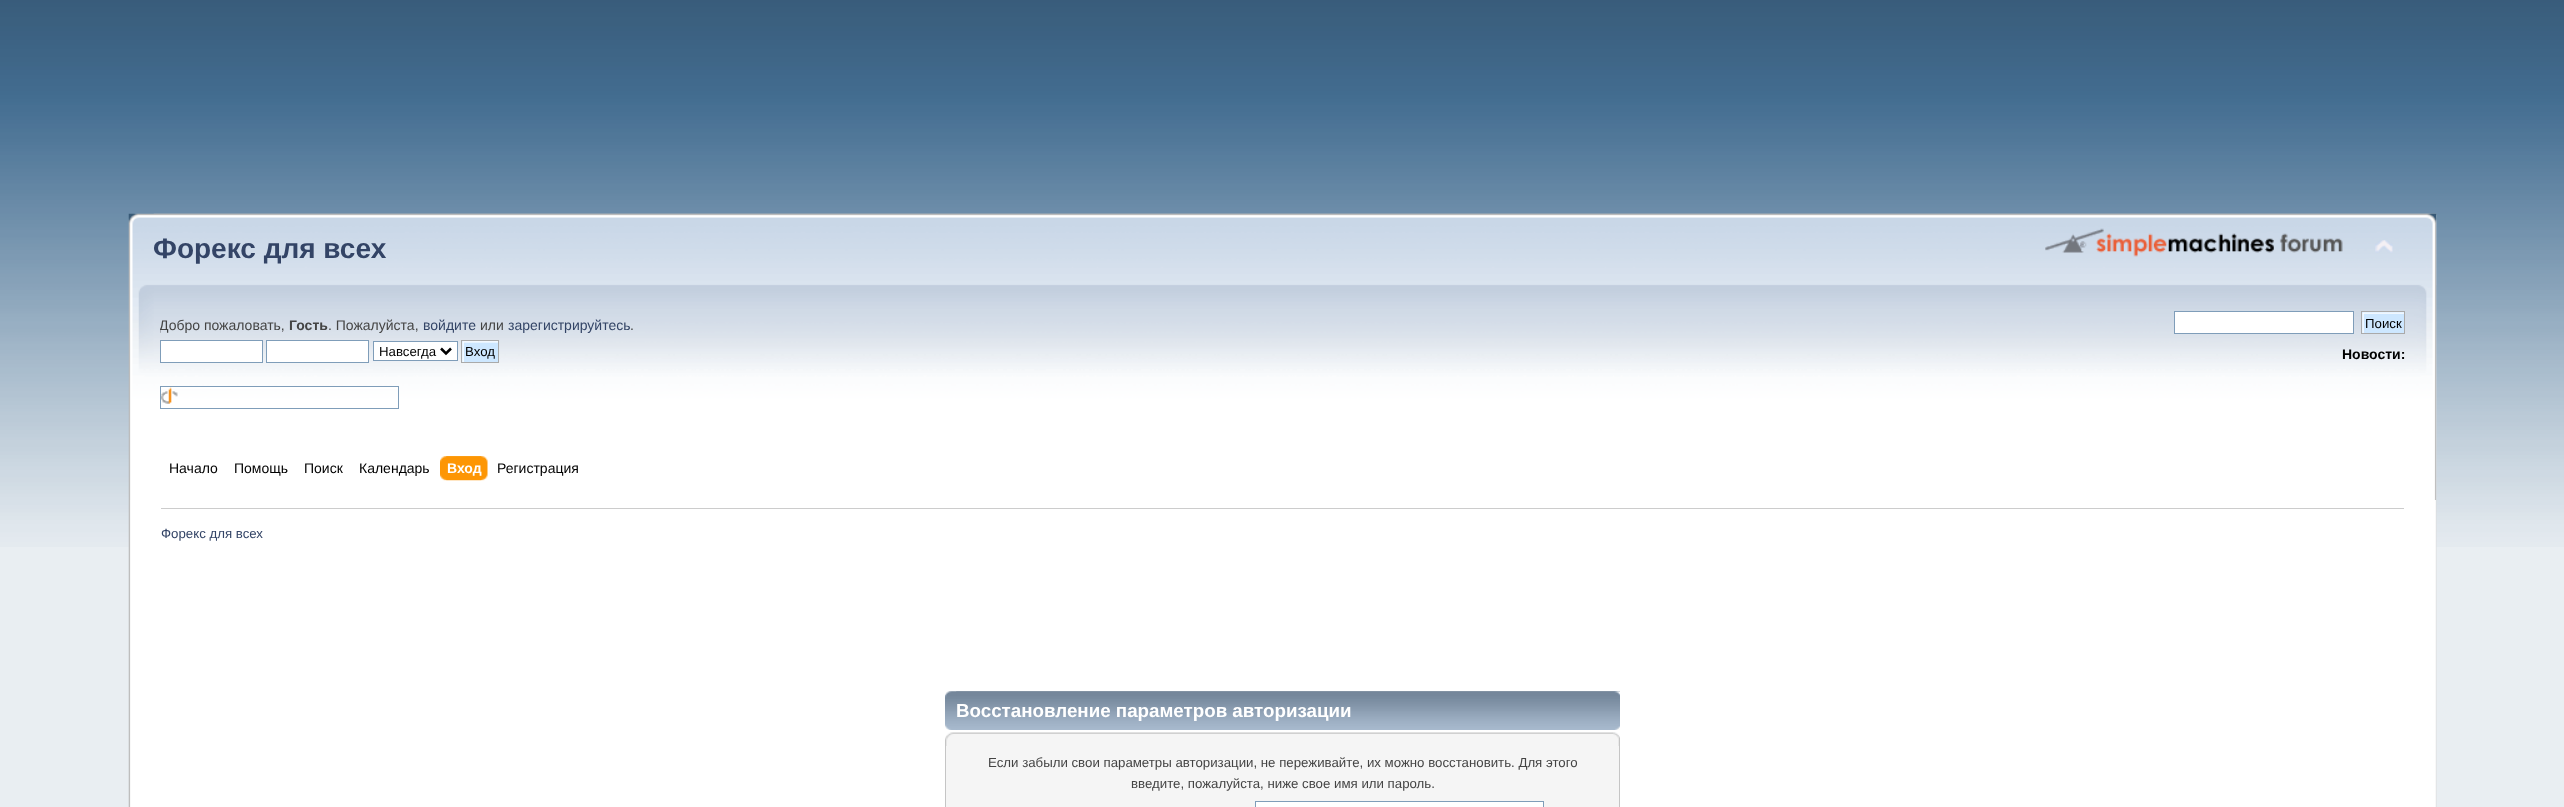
<svg xmlns="http://www.w3.org/2000/svg" width="2564" height="807">
	<defs>
		<clipPath id="clip1"><rect x="160" y="311" width="1123" height="98" /></clipPath>
	</defs>
	<rect width="100%" height="100%" fill="#E9EEF2" />
	<image x="0" y="0" width="2564" height="547" href="assets/img1.png" />
	<image x="128" y="213" width="2309" height="287" href="assets/img2.png" />
	<image x="153" y="213" width="2284" height="287" href="assets/img3.png" />
	<text x="153" y="258" font-family="Liberation Sans" font-size="28" font-weight="700" fill="#334466">Форекс для всех</text>
	<image x="2045" y="228" width="298" height="29" href="assets/img4.png" />
	<image x="2375" y="240" width="18" height="13" href="assets/img5.png" />
	<g clip-path="url(#clip1)">
		<text x="159" y="330" font-family="Liberation Sans" font-size="14" fill="#444444">Добро пожаловать,</text>
	</g>
	<text x="289" y="330" font-family="Liberation Sans" font-size="14" font-weight="700" fill="#444444">Гость</text>
	<text x="328" y="330" font-family="Liberation Sans" font-size="14" fill="#444444">. Пожалуйста,</text>
	<text x="423" y="330" font-family="Liberation Sans" font-size="14" fill="#334466">войдите</text>
	<text x="480" y="330" font-family="Liberation Sans" font-size="14" fill="#444444">или</text>
	<text x="508" y="330" font-family="Liberation Sans" font-size="14" fill="#334466">зарегистрируйтесь</text>
	<text x="630" y="330" font-family="Liberation Sans" font-size="14" fill="#444444">.</text>
	<rect x="160.5" y="340.5" width="102" height="22" fill="#FFFFFF" stroke="#7F9DB9" />
	<rect x="266.5" y="340.5" width="102" height="22" fill="#FFFFFF" stroke="#7F9DB9" />
	<rect x="373.5" y="341.5" width="84" height="19" fill="#FFFFFF" stroke="#7F9DB9" />
	<path d="M441 348.5L446 353.5L451 348.5" fill="none" stroke="#000000" stroke-width="2.5" />
	<text x="379" y="356" font-family="Liberation Sans" font-size="13.25" fill="#000000">Навсегда</text>
	<rect x="462" y="341" width="36" height="21" fill="#CDE7FF" />
	<image x="462" y="341" width="36" height="21" href="assets/img6.png" />
	<rect x="461.5" y="340.5" width="37" height="22" fill="none" stroke="#AAAAAA" />
	<text x="465" y="356" font-family="Liberation Sans" font-size="13.25" fill="#000000">Вход</text>
	<rect x="161" y="387" width="237" height="2" fill="#FFFFFF" />
	<image x="161" y="387" width="17" height="17" href="assets/img7.png" />
	<rect x="160.5" y="386.5" width="238" height="22" fill="none" stroke="#7F9DB9" />
	<rect x="2174.5" y="311.5" width="179" height="22" fill="#FFFFFF" stroke="#7F9DB9" />
	<rect x="2362" y="312" width="42" height="21" fill="#CDE7FF" />
	<image x="2362" y="312" width="42" height="21" href="assets/img8.png" />
	<rect x="2361.5" y="311.5" width="43" height="22" fill="none" stroke="#AAAAAA" />
	<text x="2365" y="328" font-family="Liberation Sans" font-size="13.25" fill="#000000">Поиск</text>
	<text x="2342" y="359" font-family="Liberation Sans" font-size="14" font-weight="700" fill="#000000">Новости:</text>
	<g font-family="Liberation Sans" font-size="14" fill="#000000">
		<text x="169" y="473">Начало</text>
		<text x="234" y="473">Помощь</text>
		<text x="304" y="473">Поиск</text>
		<text x="359" y="473">Календарь</text>
	</g>
	<image x="446" y="456" width="42" height="25" href="assets/img9.png" />
	<image x="440" y="456" width="42" height="25" href="assets/img10.png" />
	<text x="447" y="473" font-family="Liberation Sans" font-size="14" font-weight="700" fill="#FFFFFF">Вход</text>
	<text x="497" y="473" font-family="Liberation Sans" font-size="14" fill="#000000">Регистрация</text>
	<image x="128" y="500" width="2309" height="307" href="assets/img11.png" />
	<image x="2435" y="500" width="2" height="307" href="assets/img12.png" />
	<rect x="161" y="508" width="2243" height="1" fill="#CCCCCC" />
	<text x="161" y="538" font-family="Liberation Sans" font-size="13.25" fill="#334466">Форекс для всех</text>
	<image x="945" y="691" width="675" height="39" href="assets/img13.png" />
	<image x="956" y="691" width="664" height="39" href="assets/img14.png" />
	<text x="956" y="717" font-family="Liberation Sans" font-size="18.75" font-weight="700" fill="#FFFFFF">Восстановление параметров авторизации</text>
	<image x="945" y="732" width="668" height="14" href="assets/img15.png" />
	<image x="1613" y="732" width="7" height="14" href="assets/img16.png" />
	<rect x="946" y="746" width="673" height="61" fill="#F5F5F5" />
	<rect x="1619" y="746" width="1" height="61" fill="#C5C5C5" />
	<rect x="945" y="746" width="1" height="61" fill="#C5C5C5" />
	<g font-family="Liberation Sans" font-size="13.25" fill="#444444">
		<text x="988" y="767">Если забыли свои параметры авторизации, не переживайте, их можно восстановить. Для этого</text>
		<text x="1131" y="788">введите, пожалуйста, ниже свое имя или пароль.</text>
	</g>
	<rect x="1255.5" y="801.5" width="288" height="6" fill="#FFFFFF" stroke="#7F9DB9" />
</svg>
